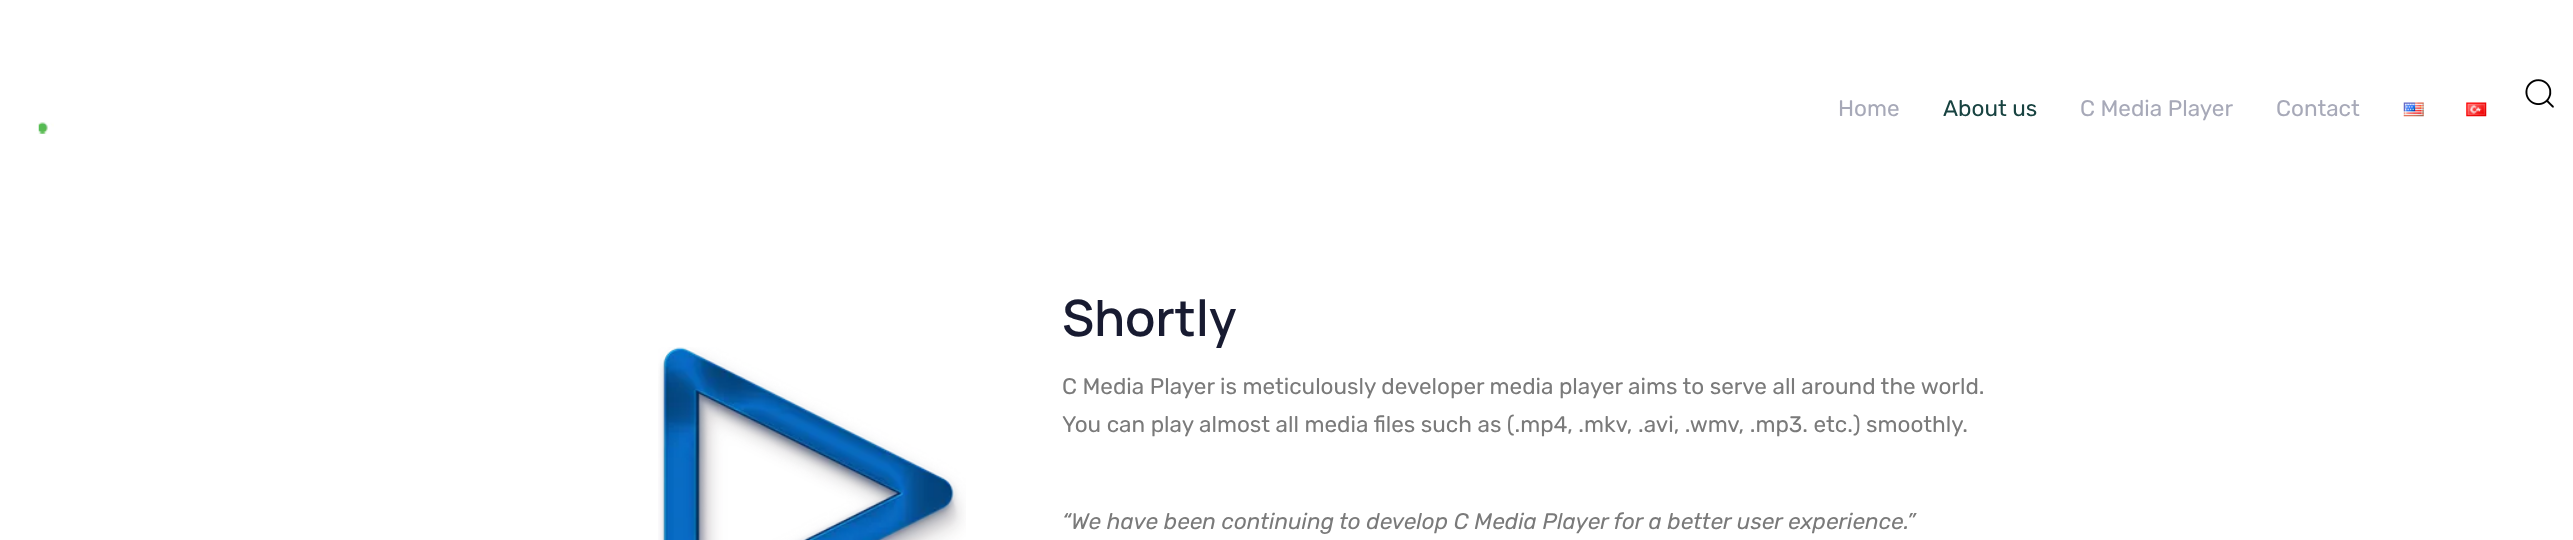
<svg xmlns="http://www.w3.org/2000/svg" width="2573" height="540">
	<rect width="100%" height="100%" fill="#FFFFFF" />
	<text x="1838" y="116" font-family="Rubik" font-size="22.5" fill="#A7A9B8">Home</text>
	<text x="1943" y="116" font-family="Rubik" font-size="22.5" fill="#184341">About us</text>
	<g font-family="Rubik" font-size="22.5" fill="#A7A9B8">
		<text x="2080" y="116">C Media Player</text>
		<text x="2276" y="116">Contact</text>
	</g>
	<image x="2403" y="102" width="21" height="15" href="assets/img1.png" />
	<image x="2466" y="102" width="21" height="15" href="assets/img2.png" />
	<image x="2525" y="79" width="29" height="29" href="assets/img3.png" />
	<image x="38" y="122" width="16" height="12" href="assets/img4.png" />
	<image x="658" y="347" width="308" height="193" href="assets/img5.png" />
	<text x="1062" y="336" font-family="Manrope" font-size="50" font-weight="600" fill="#181B31">Shortly</text>
	<g font-family="Rubik" font-size="22.5" fill="#7A7A7A">
		<text x="1062" y="394">C Media Player is meticulously developer media player aims to serve all around the world.</text>
		<text x="1062" y="432">You can play almost all media files such as (.mp4, .mkv, .avi, .wmv, .mp3. etc.) smoothly.</text>
	</g>
	<text x="1062" y="529" font-family="Rubik" font-size="22.5" font-style="italic" fill="#7A7A7A">“We have been continuing to develop C Media Player for a better user experience.”</text>
</svg>
